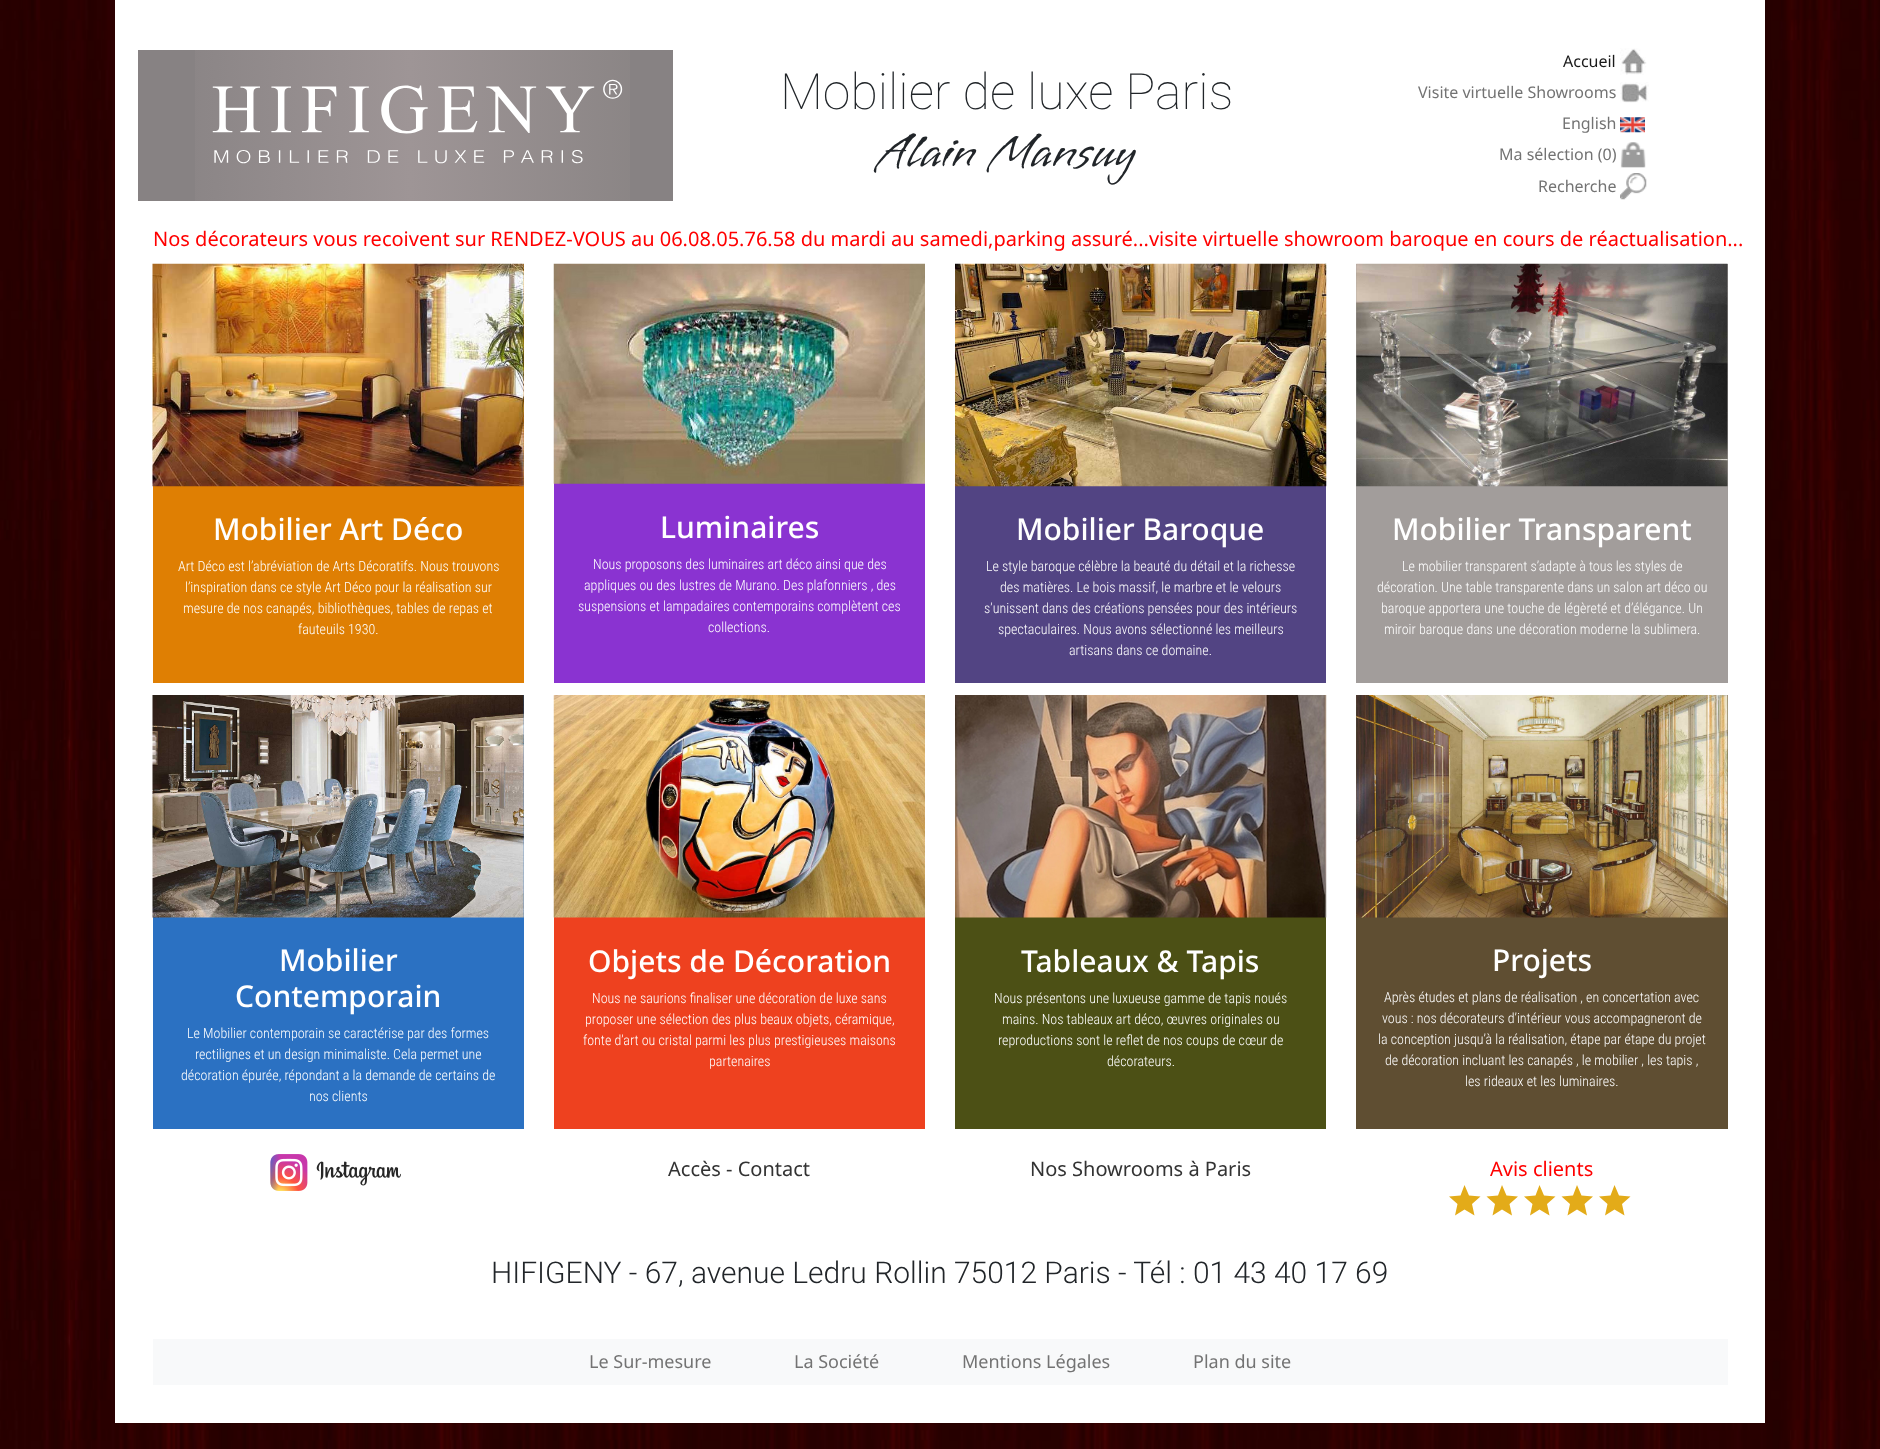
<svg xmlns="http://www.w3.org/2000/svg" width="1880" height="1449">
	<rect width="100%" height="100%" fill="#FFFFFF" />
	<image x="0" y="1423" width="1880" height="26" href="assets/img1.png" />
	<image x="0" y="0" width="1880" height="1423" href="assets/img2.png" />
	<rect x="115" y="0" width="1650" height="1423" fill="#FFFFFF" />
	<rect x="138" y="50" width="535" height="151" fill="#878283" />
	<image x="195" y="50" width="435" height="151" href="assets/img3.png" />
	<text x="780" y="109" font-family="Roboto" font-size="50" font-weight="100" fill="#212529">Mobilier de luxe Paris</text>
	<text x="878" y="166" font-family="Vujahday Script" font-size="50" fill="#212529">Alain Mansuy</text>
	<text x="1563" y="67" font-family="Noto Sans" font-size="16" fill="#1A1A1A">Accueil</text>
	<image x="1620" y="48" width="27" height="27" href="assets/img4.png" />
	<text x="1418" y="98" font-family="Noto Sans" font-size="16" fill="#737373">Visite virtuelle Showrooms</text>
	<image x="1620" y="82" width="29" height="21" href="assets/img5.png" />
	<text x="1562" y="129" font-family="Noto Sans" font-size="16" fill="#737373">English</text>
	<image x="1620" y="117" width="25" height="16" href="assets/img6.png" />
	<text x="1499" y="160" font-family="Noto Sans" font-size="16" fill="#737373">Ma sélection (0)</text>
	<image x="1620" y="142" width="26" height="26" href="assets/img7.png" />
	<text x="1538" y="192" font-family="Noto Sans" font-size="16" fill="#737373">Recherche</text>
	<image x="1620" y="173" width="27" height="27" href="assets/img8.png" />
	<text x="153" y="246" font-family="Noto Sans" font-size="20" fill="#FF0000">Nos décorateurs vous recoivent sur RENDEZ-VOUS au 06.08.05.76.58 du mardi au samedi,parking assuré...visite virtuelle showroom baroque en cours de réactualisation...</text>
	<rect x="153" y="264" width="371" height="419" fill="#DF7F03" />
	<image x="152" y="263" width="372" height="224" href="assets/img9.png" />
	<text x="213" y="540" font-family="Noto Sans" font-size="30" font-weight="500" fill="#FFFFFF">Mobilier Art Déco</text>
	<g font-family="Roboto Condensed" font-size="14" font-weight="300" fill="#FFFFFF">
		<text x="178" y="571">Art Déco est l’abréviation de Arts Décoratifs. Nous trouvons</text>
		<text x="185" y="592">l’inspiration dans ce style Art Déco pour la réalisation sur</text>
		<text x="183" y="613">mesure de nos canapés, bibliothèques, tables de repas et</text>
		<text x="298" y="634">fauteuils 1930.</text>
	</g>
	<rect x="554" y="483" width="371" height="200" fill="#8A33D1" />
	<image x="553" y="263" width="372" height="221" href="assets/img10.png" />
	<text x="660" y="538" font-family="Noto Sans" font-size="30" font-weight="500" fill="#FFFFFF">Luminaires</text>
	<g font-family="Roboto Condensed" font-size="14" font-weight="300" fill="#FFFFFF">
		<text x="593" y="569">Nous proposons des luminaires art déco ainsi que des</text>
		<text x="584" y="590">appliques ou des lustres de Murano. Des plafonniers , des</text>
		<text x="578" y="611">suspensions et lampadaires contemporains complètent ces</text>
		<text x="708" y="632">collections.</text>
	</g>
	<rect x="955" y="486" width="371" height="197" fill="#524483" />
	<image x="955" y="263" width="372" height="224" href="assets/img11.png" />
	<text x="1016" y="540" font-family="Noto Sans" font-size="30" font-weight="500" fill="#FFFFFF">Mobilier Baroque</text>
	<g font-family="Roboto Condensed" font-size="14" font-weight="300" fill="#FFFFFF">
		<text x="986" y="571">Le style baroque célèbre la beauté du détail et la richesse</text>
		<text x="1000" y="592">des matières. Le bois massif, le marbre et le velours</text>
		<text x="984" y="613">s’unissent dans des créations pensées pour des intérieurs</text>
		<text x="998" y="634">spectaculaires. Nous avons sélectionné les meilleurs</text>
		<text x="1069" y="655">artisans dans ce domaine.</text>
	</g>
	<rect x="1356" y="264" width="372" height="419" fill="#A29D9B" />
	<image x="1356" y="263" width="372" height="224" href="assets/img12.png" />
	<text x="1392" y="540" font-family="Noto Sans" font-size="30" font-weight="500" fill="#FFFFFF">Mobilier Transparent</text>
	<g font-family="Roboto Condensed" font-size="14" font-weight="300" fill="#FFFFFF">
		<text x="1402" y="571">Le mobilier transparent s’adapte à tous les styles de</text>
		<text x="1377" y="592">décoration. Une table transparente dans un salon art déco ou</text>
		<text x="1381" y="613">baroque apportera une touche de légèreté et d’élégance. Un</text>
		<text x="1384" y="634">miroir baroque dans une décoration moderne la sublimera.</text>
	</g>
	<rect x="153" y="695" width="371" height="434" fill="#2B71C2" />
	<image x="152" y="695" width="372" height="223" href="assets/img13.png" />
	<g font-family="Noto Sans" font-size="30" font-weight="500" fill="#FFFFFF">
		<text x="279" y="971">Mobilier</text>
		<text x="235" y="1007">Contemporain</text>
	</g>
	<g font-family="Roboto Condensed" font-size="14" font-weight="300" fill="#FFFFFF">
		<text x="187" y="1038">Le Mobilier contemporain se caractérise par des formes</text>
		<text x="195" y="1059">rectilignes et un design minimaliste. Cela permet une</text>
		<text x="181" y="1080">décoration épurée, répondant a la demande de certains de</text>
		<text x="309" y="1101">nos clients</text>
	</g>
	<rect x="554" y="917" width="371" height="212" fill="#EE411F" />
	<image x="553" y="695" width="372" height="223" href="assets/img14.png" />
	<text x="588" y="972" font-family="Noto Sans" font-size="30" font-weight="500" fill="#FFFFFF">Objets de Décoration</text>
	<g font-family="Roboto Condensed" font-size="14" font-weight="300" fill="#FFFFFF">
		<text x="592" y="1003">Nous ne saurions finaliser une décoration de luxe sans</text>
		<text x="585" y="1024">proposer une sélection des plus beaux objets, céramique,</text>
		<text x="583" y="1045">fonte d’art ou cristal parmi les plus prestigieuses maisons</text>
		<text x="709" y="1066">partenaires</text>
	</g>
	<rect x="955" y="917" width="371" height="212" fill="#4C5015" />
	<image x="955" y="695" width="372" height="223" href="assets/img15.png" />
	<text x="1021" y="972" font-family="Noto Sans" font-size="30" font-weight="500" fill="#FFFFFF">Tableaux &amp; Tapis</text>
	<g font-family="Roboto Condensed" font-size="14" font-weight="300" fill="#FFFFFF">
		<text x="994" y="1003">Nous présentons une luxueuse gamme de tapis noués</text>
		<text x="1002" y="1024">mains. Nos tableaux art déco, œuvres originales ou</text>
		<text x="998" y="1045">reproductions sont le reflet de nos coups de cœur de</text>
		<text x="1107" y="1066">décorateurs.</text>
	</g>
	<rect x="1356" y="695" width="372" height="434" fill="#5F4E32" />
	<image x="1356" y="695" width="372" height="223" href="assets/img16.png" />
	<text x="1492" y="971" font-family="Noto Sans" font-size="30" font-weight="500" fill="#FFFFFF">Projets</text>
	<g font-family="Roboto Condensed" font-size="14" font-weight="300" fill="#FFFFFF">
		<text x="1384" y="1002">Après études et plans de réalisation , en concertation avec</text>
		<text x="1382" y="1023">vous : nos décorateurs d’intérieur vous accompagneront de</text>
		<text x="1378" y="1044">la conception jusqu’à la réalisation, étape par étape du projet</text>
		<text x="1385" y="1065">de décoration incluant les canapés , le mobilier , les tapis ,</text>
		<text x="1465" y="1086">les rideaux et les luminaires.</text>
	</g>
	<image x="270" y="1154" width="131" height="37" href="assets/img17.png" />
	<g font-family="Noto Sans" font-size="20" fill="#333333">
		<text x="668" y="1176">Accès - Contact</text>
		<text x="1030" y="1176">Nos Showrooms à Paris</text>
	</g>
	<text x="1490" y="1176" font-family="Noto Sans" font-size="20" fill="#FF0000">Avis clients</text>
	<path d="M1464.5 1209.5L1474.5 1215.5L1472 1204L1480.5 1196.5L1469 1195.5L1464.5 1185L1460.5 1195.5L1449 1196.5L1457.5 1204L1455 1215.5Z" fill="#E3AB19" />
	<path d="M1502 1209.5L1512 1215.5L1509.5 1204L1518 1196.5L1506.5 1195.5L1502 1185L1498 1195.5L1486.5 1196.5L1495 1204L1492.5 1215.5Z" fill="#E3AB19" />
	<path d="M1539.5 1209.5L1549.5 1215.5L1547 1204L1555.5 1196.5L1544 1195.5L1539.5 1185L1535.5 1195.5L1524 1196.5L1532.5 1204L1530 1215.5Z" fill="#E3AB19" />
	<path d="M1577 1209.5L1587 1215.5L1584.5 1204L1593 1196.5L1581.5 1195.5L1577 1185L1573 1195.5L1561.5 1196.5L1570 1204L1567.5 1215.5Z" fill="#E3AB19" />
	<path d="M1614.5 1209.5L1624.5 1215.5L1622 1204L1630.5 1196.5L1619 1195.5L1614.5 1185L1610.5 1195.5L1599 1196.5L1607.5 1204L1605 1215.5Z" fill="#E3AB19" />
	<text x="491" y="1283" font-family="Roboto" font-size="30" font-weight="300" fill="#212529">HIFIGENY - 67, avenue Ledru Rollin 75012 Paris - Tél : 01 43 40 17 69</text>
	<rect x="153" y="1339" width="1575" height="46" fill="#F8F9FA" />
	<g font-family="Noto Sans" font-size="18" fill="#737373">
		<text x="589" y="1368">Le Sur-mesure</text>
		<text x="794" y="1368">La Société</text>
		<text x="962" y="1368">Mentions Légales</text>
		<text x="1193" y="1368">Plan du site</text>
	</g>
</svg>
